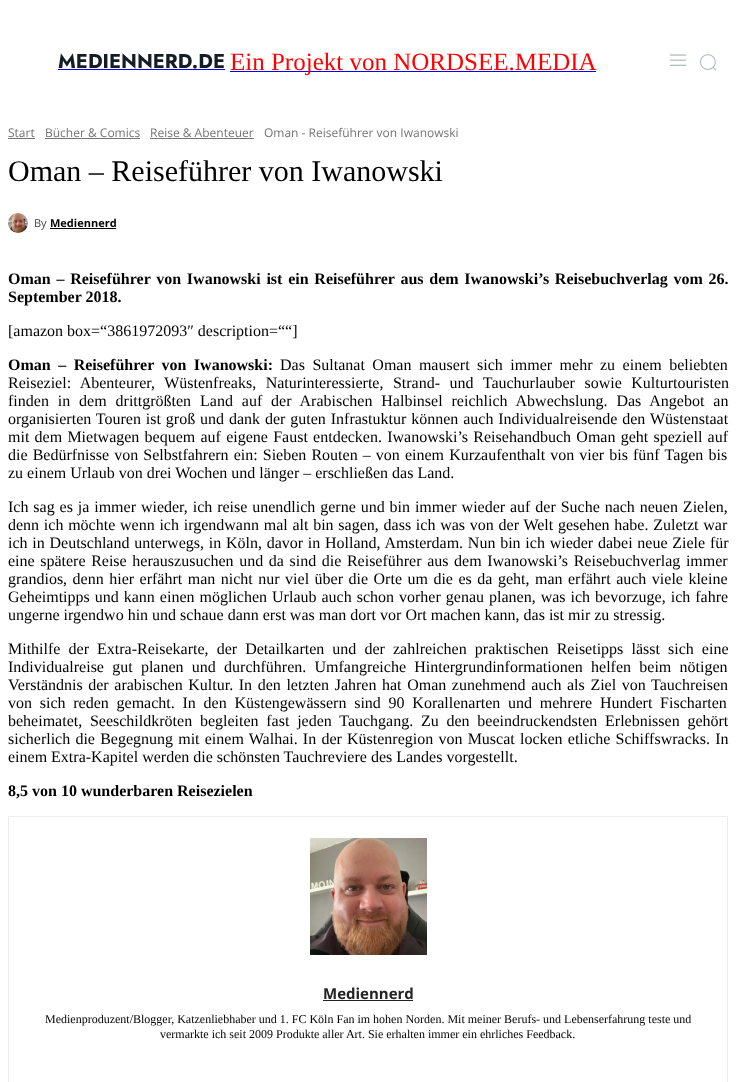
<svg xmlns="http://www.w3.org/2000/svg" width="736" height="1082">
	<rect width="100%" height="100%" fill="#FFFFFF" />
	<text x="58" y="68" font-family="Jost" font-size="20" font-weight="700" fill="#131D23">MEDIENNERD.DE</text>
	<rect x="58" y="69" width="167" height="1" fill="#0000EE" />
	<rect x="230" y="71" width="366" height="1" fill="#0000EE" />
	<text x="230" y="70" font-family="Liberation Serif" font-size="25" fill="#FF0000">Ein Projekt von NORDSEE.MEDIA</text>
	<image x="669" y="54" width="18" height="12" href="assets/img1.png" />
	<image x="700" y="54" width="17" height="17" href="assets/img2.png" />
	<text x="8" y="137" font-family="Open Sans" font-size="12" fill="#747474">Start</text>
	<rect x="8" y="138" width="27" height="1" fill="#747474" />
	<text x="45" y="137" font-family="Open Sans" font-size="12" fill="#747474">Bücher &amp; Comics</text>
	<rect x="45" y="138" width="95" height="1" fill="#747474" />
	<text x="150" y="137" font-family="Open Sans" font-size="12" fill="#747474">Reise &amp; Abenteuer</text>
	<rect x="150" y="138" width="104" height="1" fill="#747474" />
	<text x="264" y="137" font-family="Open Sans" font-size="12" fill="#747474">Oman - Reiseführer von Iwanowski</text>
	<text x="8" y="181" font-family="Liberation Serif" font-size="30" fill="#000000">Oman – Reiseführer von Iwanowski</text>
	<image x="8" y="213" width="20" height="20" href="assets/img3.png" />
	<text x="34" y="227" font-family="Open Sans" font-size="11" fill="#444444">By</text>
	<text x="50" y="227" font-family="Open Sans" font-size="11" font-weight="700" fill="#000000">Mediennerd</text>
	<rect x="50" y="228" width="66" height="1" fill="#000000" />
	<g font-family="Liberation Serif" font-size="16" font-weight="700" fill="#000000">
		<text x="8" y="284" word-spacing="1.75">Oman – Reiseführer von Iwanowski ist ein Reiseführer aus dem Iwanowski’s Reisebuchverlag vom 26.</text>
		<text x="8" y="302">September 2018.</text>
	</g>
	<text x="8" y="336" font-family="Liberation Serif" font-size="16" fill="#000000">[amazon box=“3861972093″ description=““]</text>
	<text x="8" y="370" word-spacing="3.5" font-family="Liberation Serif" font-size="16" font-weight="700" fill="#000000">Oman – Reiseführer von Iwanowski:</text>
	<g font-family="Liberation Serif" font-size="16" fill="#000000">
		<text x="280" y="370" word-spacing="3.5">Das Sultanat Oman mausert sich immer mehr zu einem beliebten</text>
		<text x="8" y="388" word-spacing="5.5">Reiseziel: Abenteurer, Wüstenfreaks, Naturinteressierte, Strand- und Tauchurlauber sowie Kulturtouristen</text>
		<text x="8" y="406" word-spacing="4.9">finden in dem drittgrößten Land auf der Arabischen Halbinsel reichlich Abwechslung. Das Angebot an</text>
		<text x="8" y="424" word-spacing="0.9">organisierten Touren ist groß und dank der guten Infrastuktur können auch Individualreisende den Wüstenstaat</text>
		<text x="8" y="442" word-spacing="1.25">mit dem Mietwagen bequem auf eigene Faust entdecken. Iwanowski’s Reisehandbuch Oman geht speziell auf</text>
		<text x="8" y="460" word-spacing="1.1">die Bedürfnisse von Selbstfahrern ein: Sieben Routen – von einem Kurzaufenthalt von vier bis fünf Tagen bis</text>
		<text x="8" y="478">zu einem Urlaub von drei Wochen und länger – erschließen das Land.</text>
		<text x="8" y="512" word-spacing="0.9">Ich sag es ja immer wieder, ich reise unendlich gerne und bin immer wieder auf der Suche nach neuen Zielen,</text>
		<text x="8" y="530" word-spacing="0.75">denn ich möchte wenn ich irgendwann mal alt bin sagen, dass ich was von der Welt gesehen habe. Zuletzt war</text>
		<text x="8" y="548" word-spacing="0.75">ich in Deutschland unterwegs, in Köln, davor in Holland, Amsterdam. Nun bin ich wieder dabei neue Ziele für</text>
		<text x="8" y="566" word-spacing="1.6">eine spätere Reise herauszusuchen und da sind die Reiseführer aus dem Iwanowski’s Reisebuchverlag immer</text>
		<text x="8" y="584" word-spacing="1.5">grandios, denn hier erfährt man nicht nur viel über die Orte um die es da geht, man erfährt auch viele kleine</text>
		<text x="8" y="602" word-spacing="1">Geheimtipps und kann einen möglichen Urlaub auch schon vorher genau planen, was ich bevorzuge, ich fahre</text>
		<text x="8" y="620">ungerne irgendwo hin und schaue dann erst was man dort vor Ort machen kann, das ist mir zu stressig.</text>
		<text x="8" y="654" word-spacing="4.1">Mithilfe der Extra-Reisekarte, der Detailkarten und der zahlreichen praktischen Reisetipps lässt sich eine</text>
		<text x="8" y="672" word-spacing="4.25">Individualreise gut planen und durchführen. Umfangreiche Hintergrundinformationen helfen beim nötigen</text>
		<text x="8" y="690" word-spacing="1.6">Verständnis der arabischen Kultur. In den letzten Jahren hat Oman zunehmend auch als Ziel von Tauchreisen</text>
		<text x="8" y="708" word-spacing="3.75">von sich reden gemacht. In den Küstengewässern sind 90 Korallenarten und mehrere Hundert Fischarten</text>
		<text x="8" y="726" word-spacing="3.75">beheimatet, Seeschildkröten begleiten fast jeden Tauchgang. Zu den beeindruckendsten Erlebnissen gehört</text>
		<text x="8" y="744" word-spacing="1.2">sicherlich die Begegnung mit einem Walhai. In der Küstenregion von Muscat locken etliche Schiffswracks. In</text>
		<text x="8" y="762">einem Extra-Kapitel werden die schönsten Tauchreviere des Landes vorgestellt.</text>
	</g>
	<text x="8" y="796" font-family="Liberation Serif" font-size="16" font-weight="700" fill="#000000">8,5 von 10 wunderbaren Reisezielen</text>
	<rect x="8.5" y="816.5" width="719" height="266" fill="none" stroke="#EDEDED" />
	<image x="310" y="838" width="117" height="117" href="assets/img4.png" />
	<text x="323" y="999" font-family="Open Sans" font-size="15" font-weight="700" fill="#222222">Mediennerd</text>
	<rect x="323" y="1000" width="90" height="1" fill="#222222" />
	<g font-family="Liberation Serif" font-size="12" fill="#000000">
		<text x="45" y="1023">Medienproduzent/Blogger, Katzenliebhaber und 1. FC Köln Fan im hohen Norden. Mit meiner Berufs- und Lebenserfahrung teste und</text>
		<text x="160" y="1038">vermarkte ich seit 2009 Produkte aller Art. Sie erhalten immer ein ehrliches Feedback.</text>
	</g>
</svg>
